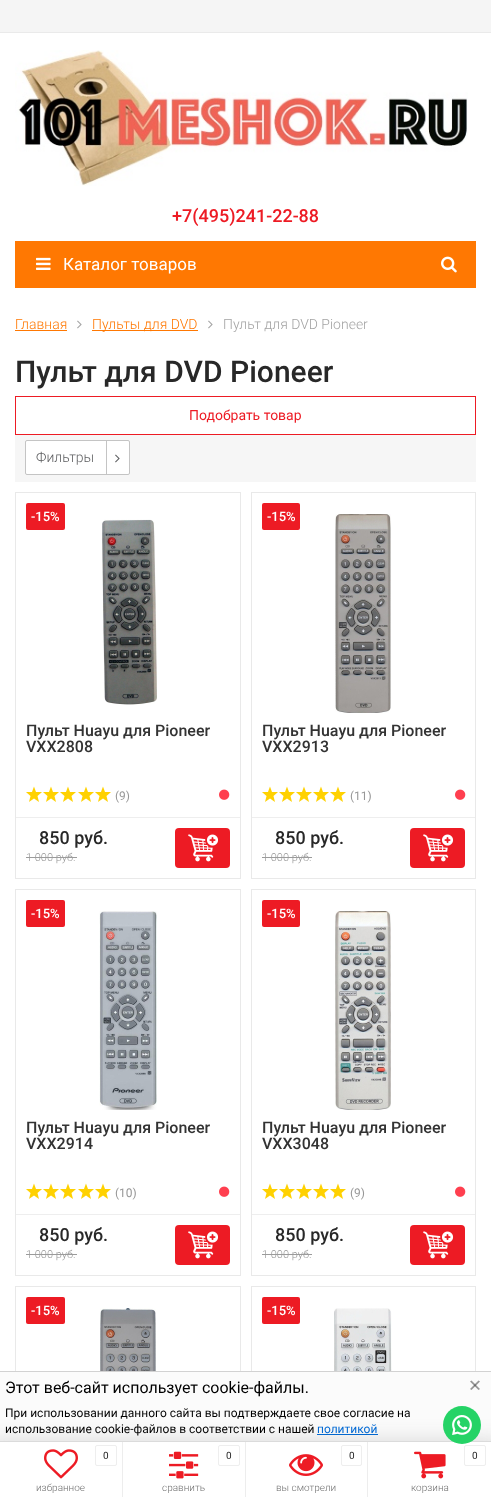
<svg xmlns="http://www.w3.org/2000/svg" width="491" height="1497">
	<rect width="100%" height="100%" fill="#FFFFFF" />
	<rect x="0" y="0" width="491" height="32" fill="#F5F5F5" />
	<rect x="0" y="32" width="491" height="1" fill="#EAEAEA" />
	<image x="15" y="50" width="453" height="136" href="assets/img1.png" />
	<text x="172" y="222" font-family="Roboto" font-size="18" font-weight="500" fill="#ED1B24">+7(495)241-22-88</text>
	<rect x="15" y="241" width="461" height="47" fill="#FF7802" />
	<image x="36" y="257" width="15" height="13" href="assets/img2.png" />
	<text x="63" y="270" font-family="Roboto" font-size="17" fill="#FFFFFF">Каталог товаров</text>
	<image x="441" y="256" width="16" height="17" href="assets/img3.png" />
	<text x="15" y="329" font-family="Roboto" font-size="14" font-weight="300" fill="#FF7802">Главная</text>
	<rect x="15" y="330" width="52" height="1" fill="#FF7802" />
	<image x="77" y="320" width="5" height="9" href="assets/img4.png" />
	<rect x="92" y="330" width="106" height="1" fill="#FF7802" />
	<text x="92" y="329" font-family="Roboto" font-size="14" font-weight="300" fill="#FF7802">Пульты для DVD</text>
	<image x="208" y="320" width="5" height="9" href="assets/img4.png" />
	<text x="223" y="329" font-family="Roboto" font-size="14" font-weight="300" fill="#A3A3A3">Пульт для DVD Pioneer</text>
	<text x="15" y="382" font-family="Roboto" font-size="30" font-weight="500" fill="#282828">Пульт для DVD Pioneer</text>
	<rect x="15.5" y="396.5" width="460" height="38" fill="none" stroke="#ED1B24" />
	<text x="189" y="420" font-family="Roboto" font-size="14" fill="#ED1B24">Подобрать товар</text>
	<rect x="15" y="435" width="461" height="47" fill="#F6F6F6" />
	<rect x="25.5" y="440.5" width="104" height="34" rx="1.5" fill="#FFFFFF" stroke="#C4C4C4" />
	<text x="36" y="462" font-family="Roboto" font-size="14" font-weight="300" fill="#5D5E60">Фильтры</text>
	<rect x="106" y="440" width="1" height="35" fill="#C4C4C4" />
	<image x="115" y="454" width="5" height="9" href="assets/img5.png" />
	<rect x="15.5" y="492.5" width="225" height="386" fill="none" stroke="#E9E9E9" />
	<rect x="26" y="503" width="39" height="27" rx="2" fill="#ED1B24" />
	<text x="31" y="521" font-family="Roboto" font-size="13" font-weight="500" fill="#FFFFFF">-15%</text>
	<image x="102" y="519" width="55" height="186" href="assets/img6.png" />
	<g font-family="Roboto" font-size="16" font-weight="500" fill="#333333">
		<text x="26" y="736">Пульт Huayu для Pioneer</text>
		<text x="26" y="752">VXX2808</text>
	</g>
	<image x="26" y="786" width="16" height="16" href="assets/img7.png" />
	<image x="43" y="786" width="16" height="16" href="assets/img7.png" />
	<image x="60" y="786" width="16" height="16" href="assets/img7.png" />
	<image x="78" y="786" width="16" height="16" href="assets/img7.png" />
	<image x="95" y="786" width="16" height="16" href="assets/img7.png" />
	<text x="115" y="800" font-family="Roboto" font-size="12" fill="#979797">(9)</text>
	<image x="219" y="789" width="11" height="11" href="assets/img8.png" />
	<rect x="16" y="817" width="224" height="1" fill="#EEEEEE" />
	<text x="39" y="844" font-family="Roboto" font-size="18" font-weight="500" fill="#282828">850 руб.</text>
	<text x="26" y="861" font-family="Roboto" font-size="11" font-weight="300" fill="#979797">1 000 руб.</text>
	<rect x="26" y="857" width="51" height="1" fill="#9B9B9B" />
	<rect x="175" y="828" width="55" height="40" rx="4" fill="#ED1B24" />
	<image x="188" y="834" width="31" height="28" href="assets/img9.png" />
	<rect x="251.5" y="492.5" width="224" height="386" fill="none" stroke="#E9E9E9" />
	<rect x="262" y="503" width="38" height="27" rx="2" fill="#ED1B24" />
	<text x="267" y="521" font-family="Roboto" font-size="13" font-weight="500" fill="#FFFFFF">-15%</text>
	<image x="335" y="514" width="56" height="199" href="assets/img10.png" />
	<g font-family="Roboto" font-size="16" font-weight="500" fill="#333333">
		<text x="262" y="736">Пульт Huayu для Pioneer</text>
		<text x="262" y="752">VXX2913</text>
	</g>
	<image x="262" y="786" width="16" height="16" href="assets/img7.png" />
	<image x="279" y="786" width="16" height="16" href="assets/img7.png" />
	<image x="296" y="786" width="16" height="16" href="assets/img7.png" />
	<image x="313" y="786" width="16" height="16" href="assets/img7.png" />
	<image x="330" y="786" width="16" height="16" href="assets/img7.png" />
	<text x="350" y="800" font-family="Roboto" font-size="12" fill="#979797">(11)</text>
	<image x="455" y="789" width="11" height="11" href="assets/img8.png" />
	<rect x="252" y="817" width="223" height="1" fill="#EEEEEE" />
	<text x="275" y="844" font-family="Roboto" font-size="18" font-weight="500" fill="#282828">850 руб.</text>
	<text x="262" y="861" font-family="Roboto" font-size="11" font-weight="300" fill="#979797">1 000 руб.</text>
	<rect x="262" y="857" width="50" height="1" fill="#9B9B9B" />
	<rect x="410" y="828" width="55" height="40" rx="4" fill="#ED1B24" />
	<image x="423" y="834" width="31" height="28" href="assets/img9.png" />
	<rect x="15.5" y="889.5" width="225" height="386" fill="none" stroke="#E9E9E9" />
	<rect x="26" y="900" width="39" height="27" rx="2" fill="#ED1B24" />
	<text x="31" y="918" font-family="Roboto" font-size="13" font-weight="500" fill="#FFFFFF">-15%</text>
	<image x="99" y="911" width="58" height="199" href="assets/img11.png" />
	<g font-family="Roboto" font-size="16" font-weight="500" fill="#333333">
		<text x="26" y="1133">Пульт Huayu для Pioneer</text>
		<text x="26" y="1149">VXX2914</text>
	</g>
	<image x="26" y="1183" width="16" height="16" href="assets/img7.png" />
	<image x="43" y="1183" width="16" height="16" href="assets/img7.png" />
	<image x="60" y="1183" width="16" height="16" href="assets/img7.png" />
	<image x="78" y="1183" width="16" height="16" href="assets/img7.png" />
	<image x="95" y="1183" width="16" height="16" href="assets/img7.png" />
	<text x="115" y="1197" font-family="Roboto" font-size="12" fill="#979797">(10)</text>
	<image x="219" y="1186" width="11" height="11" href="assets/img8.png" />
	<rect x="16" y="1214" width="224" height="1" fill="#EEEEEE" />
	<text x="39" y="1241" font-family="Roboto" font-size="18" font-weight="500" fill="#282828">850 руб.</text>
	<text x="26" y="1258" font-family="Roboto" font-size="11" font-weight="300" fill="#979797">1 000 руб.</text>
	<rect x="26" y="1254" width="51" height="1" fill="#9B9B9B" />
	<rect x="175" y="1225" width="55" height="40" rx="4" fill="#ED1B24" />
	<image x="188" y="1231" width="31" height="28" href="assets/img9.png" />
	<rect x="251.5" y="889.5" width="224" height="386" fill="none" stroke="#E9E9E9" />
	<rect x="262" y="900" width="38" height="27" rx="2" fill="#ED1B24" />
	<text x="267" y="918" font-family="Roboto" font-size="13" font-weight="500" fill="#FFFFFF">-15%</text>
	<image x="335" y="911" width="56" height="199" href="assets/img12.png" />
	<g font-family="Roboto" font-size="16" font-weight="500" fill="#333333">
		<text x="262" y="1133">Пульт Huayu для Pioneer</text>
		<text x="262" y="1149">VXX3048</text>
	</g>
	<image x="262" y="1183" width="16" height="16" href="assets/img7.png" />
	<image x="279" y="1183" width="16" height="16" href="assets/img7.png" />
	<image x="296" y="1183" width="16" height="16" href="assets/img7.png" />
	<image x="313" y="1183" width="16" height="16" href="assets/img7.png" />
	<image x="330" y="1183" width="16" height="16" href="assets/img7.png" />
	<text x="350" y="1197" font-family="Roboto" font-size="12" fill="#979797">(9)</text>
	<image x="455" y="1186" width="11" height="11" href="assets/img8.png" />
	<rect x="252" y="1214" width="223" height="1" fill="#EEEEEE" />
	<text x="275" y="1241" font-family="Roboto" font-size="18" font-weight="500" fill="#282828">850 руб.</text>
	<text x="262" y="1258" font-family="Roboto" font-size="11" font-weight="300" fill="#979797">1 000 руб.</text>
	<rect x="262" y="1254" width="50" height="1" fill="#9B9B9B" />
	<rect x="410" y="1225" width="55" height="40" rx="4" fill="#ED1B24" />
	<image x="423" y="1231" width="31" height="28" href="assets/img9.png" />
	<rect x="15.5" y="1286.5" width="225" height="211" fill="none" stroke="#E9E9E9" />
	<rect x="26" y="1297" width="39" height="27" rx="2" fill="#ED1B24" />
	<text x="31" y="1315" font-family="Roboto" font-size="13" font-weight="500" fill="#FFFFFF">-15%</text>
	<image x="100" y="1308" width="56" height="63" href="assets/img13.png" />
	<rect x="251.5" y="1286.5" width="224" height="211" fill="none" stroke="#E9E9E9" />
	<rect x="262" y="1297" width="38" height="27" rx="2" fill="#ED1B24" />
	<text x="267" y="1315" font-family="Roboto" font-size="13" font-weight="500" fill="#FFFFFF">-15%</text>
	<image x="334" y="1308" width="58" height="63" href="assets/img14.png" />
	<rect x="0" y="1372" width="491" height="69" fill="#FBFBFB" />
	<rect x="0" y="1371" width="491" height="1" fill="#D2D2D2" />
	<text x="5" y="1393" font-family="Roboto" font-size="16" fill="#000000">Этот веб-сайт использует cookie-файлы.</text>
	<path d="M471.5 1380.5L480 1389L478.5 1390L470 1381.5Z" fill="#979797" />
	<path d="M470 1389L478.5 1380.5L480 1381.5L471.5 1390Z" fill="#333333" fill-opacity="0.5" />
	<g font-family="Roboto" font-size="12" fill="#000000">
		<text x="5" y="1417">При использовании данного сайта вы подтверждаете свое согласие на</text>
		<text x="5" y="1433">использование cookie-файлов в соответствии с нашей</text>
	</g>
	<text x="317" y="1433" font-family="Roboto" font-size="12" fill="#006BD8">политикой</text>
	<rect x="317" y="1434" width="61" height="1" fill="#006BD8" />
	<rect x="-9" y="1439" width="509" height="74" fill="#323232" fill-opacity="0.15" filter="blur(10px)" />
	<rect x="0" y="1442" width="491" height="55" fill="#FFFFFF" />
	<rect x="0" y="1441" width="491" height="1" fill="#DBDBDB" />
	<circle cx="462" cy="1425" r="19" fill="#25D366" />
	<image x="452" y="1415" width="20" height="20" href="assets/img15.png" />
	<rect x="122" y="1442" width="1" height="55" fill="#EDEDED" />
	<image x="44" y="1449" width="34" height="30" href="assets/img16.png" />
	<rect x="95.5" y="1445.5" width="21" height="20" rx="1.5" fill="none" stroke="#EEEEEE" />
	<text x="103" y="1459" font-family="Roboto" font-size="10" fill="#222222">0</text>
	<text x="36" y="1491" font-family="Roboto" font-size="10" font-weight="300" fill="#6F6F6F">избранное</text>
	<rect x="245" y="1442" width="1" height="55" fill="#EDEDED" />
	<image x="169" y="1451" width="30" height="28" href="assets/img17.png" />
	<rect x="218.5" y="1445.5" width="21" height="20" rx="1.5" fill="none" stroke="#EEEEEE" />
	<text x="226" y="1459" font-family="Roboto" font-size="10" fill="#222222">0</text>
	<text x="162" y="1491" font-family="Roboto" font-size="10" font-weight="300" fill="#6F6F6F">сравнить</text>
	<rect x="367" y="1442" width="1" height="55" fill="#EDEDED" />
	<image x="289" y="1454" width="34" height="22" href="assets/img18.png" />
	<rect x="341.5" y="1445.5" width="20" height="20" rx="1.5" fill="none" stroke="#EEEEEE" />
	<text x="349" y="1459" font-family="Roboto" font-size="10" fill="#222222">0</text>
	<text x="276" y="1491" font-family="Roboto" font-size="10" font-weight="300" fill="#6F6F6F">вы смотрели</text>
	<image x="414" y="1451" width="32" height="28" href="assets/img19.png" />
	<rect x="464.5" y="1445.5" width="21" height="20" rx="1.5" fill="none" stroke="#EEEEEE" />
	<text x="472" y="1459" font-family="Roboto" font-size="10" fill="#222222">0</text>
	<text x="411" y="1491" font-family="Roboto" font-size="10" font-weight="300" fill="#6F6F6F">корзина</text>
</svg>
